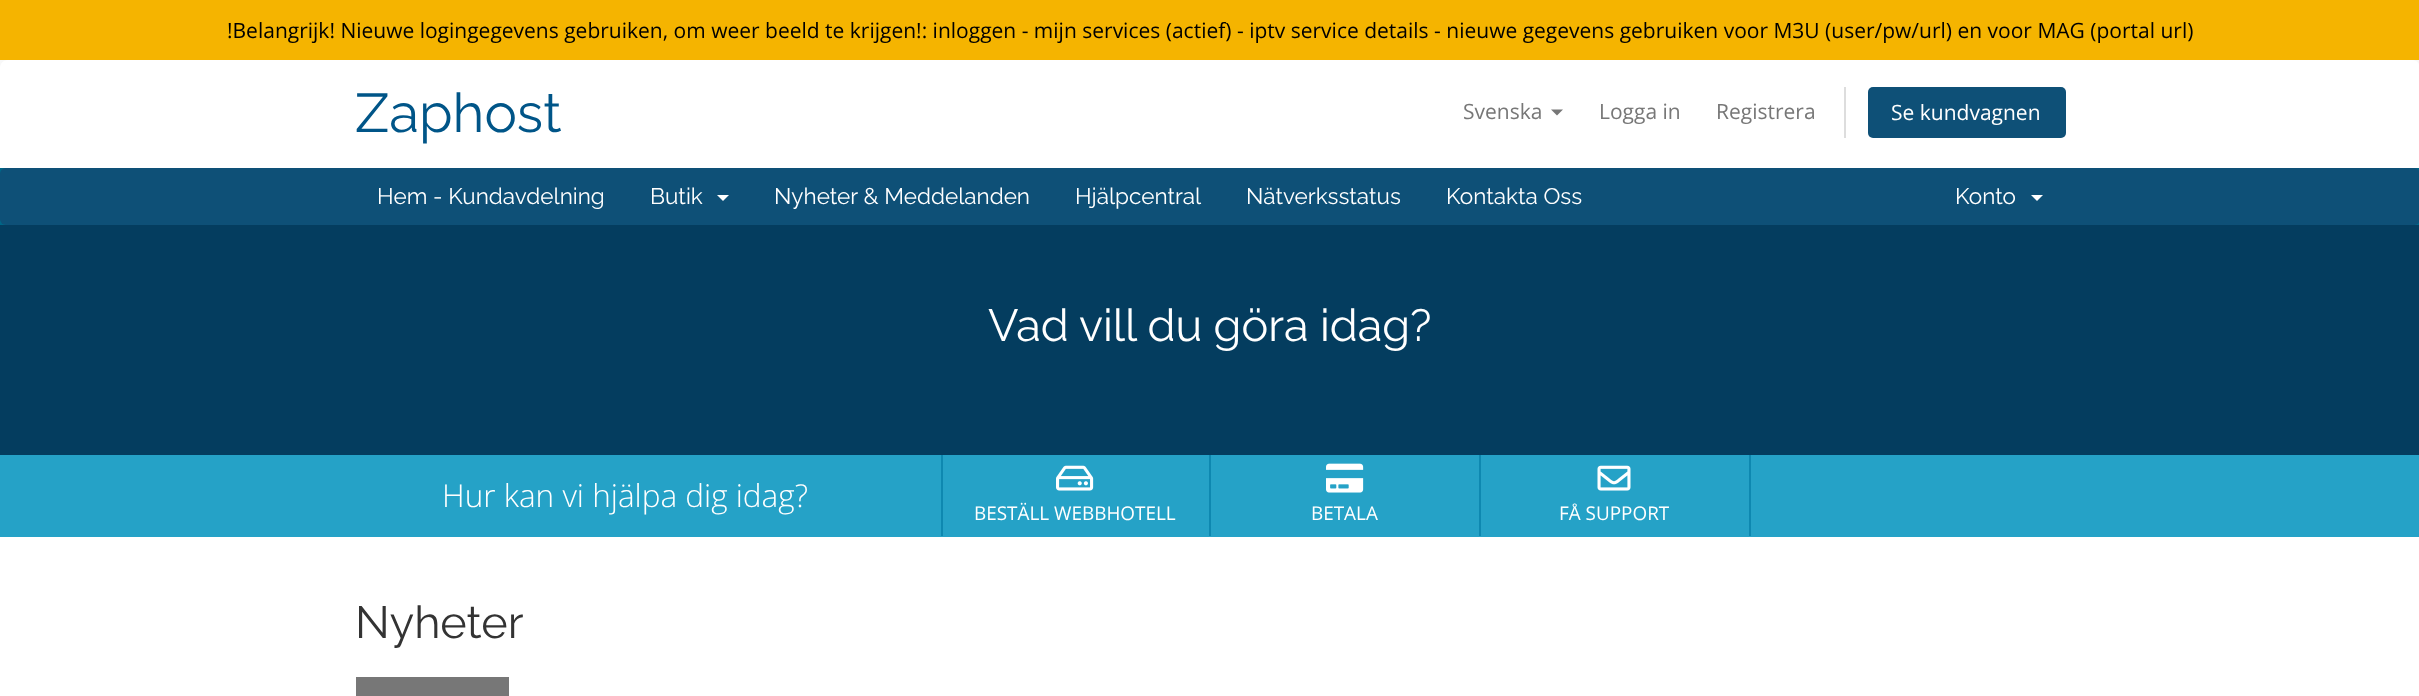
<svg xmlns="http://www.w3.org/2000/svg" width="2419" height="696">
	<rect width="100%" height="100%" fill="#F8F8F8" />
	<rect x="0" y="0" width="2419" height="60" fill="#F5B400" />
	<text x="227" y="38" font-family="Open Sans" font-size="21" fill="#000000">!Belangrijk! Nieuwe logingegevens gebruiken, om weer beeld te krijgen!: inloggen - mijn services (actief) - iptv service details - nieuwe gegevens gebruiken voor M3U (user/pw/url) en voor MAG (portal url)</text>
	<path d="M8 60H2412C2416.5 60 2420 63.5 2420 68V168H0V68C0 63.5 3.5 60 8 60Z" fill="#FFFFFF" />
	<text x="355" y="132" font-family="Raleway" font-size="54.5" fill="#005588">Zaphost</text>
	<text x="1463" y="119" font-family="Open Sans" font-size="21" fill="#777777">Svenska</text>
	<path d="M1551 109.5H1563L1557 115.5Z" fill="#777777" />
	<g font-family="Open Sans" font-size="21" fill="#777777">
		<text x="1599" y="119">Logga in</text>
		<text x="1716" y="119">Registrera</text>
	</g>
	<rect x="1844" y="87" width="2" height="51" fill="#DDDDDD" />
	<rect x="1868" y="87" width="198" height="51" rx="5" fill="#0E5077" />
	<text x="1891" y="120" font-family="Open Sans" font-size="21" fill="#FFFFFF">Se kundvagnen</text>
	<rect x="0" y="168" width="2419" height="57" fill="#006687" />
	<rect x="0" y="168" width="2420" height="57" rx="6" fill="#0E5077" />
	<g font-family="Raleway" font-size="22.5" fill="#FFFFFF">
		<text x="377" y="204">Hem - Kundavdelning</text>
		<text x="650" y="204">Butik</text>
	</g>
	<path d="M717 195H729L723 201Z" fill="#FFFFFF" />
	<g font-family="Raleway" font-size="22.5" fill="#FFFFFF">
		<text x="774" y="204">Nyheter &amp; Meddelanden</text>
		<text x="1075" y="204">Hjälpcentral</text>
		<text x="1246" y="204">Nätverksstatus</text>
		<text x="1446" y="204">Kontakta Oss</text>
		<text x="1955" y="204">Konto</text>
	</g>
	<path d="M2031 195H2043L2037 201Z" fill="#FFFFFF" />
	<rect x="0" y="225" width="2419" height="230" fill="#043D5F" />
	<text x="988" y="341" font-family="Raleway" font-size="45" fill="#FFFFFF">Vad vill du göra idag?</text>
	<rect x="0" y="455" width="2419" height="82" fill="#25A2C7" />
	<text x="442" y="507" font-family="Open Sans" font-size="31.5" font-weight="300" fill="#FFFFFF">Hur kan vi hjälpa dig idag?</text>
	<rect x="1209" y="455" width="2" height="81" fill="#0E88B0" />
	<rect x="941" y="455" width="2" height="81" fill="#0E88B0" />
	<image x="1056" y="465" width="38" height="26" href="assets/img1.png" />
	<text x="974" y="520" font-family="Open Sans" font-size="18.9" fill="#FFFFFF">BESTÄLL WEBBHOTELL</text>
	<rect x="1479" y="455" width="2" height="81" fill="#0E88B0" />
	<image x="1326" y="463" width="38" height="30" href="assets/img2.png" />
	<text x="1311" y="520" font-family="Open Sans" font-size="18.9" fill="#FFFFFF">BETALA</text>
	<rect x="1749" y="455" width="2" height="81" fill="#0E88B0" />
	<image x="1597" y="465" width="34" height="26" href="assets/img3.png" />
	<text x="1559" y="520" font-family="Open Sans" font-size="18.9" fill="#FFFFFF">FÅ SUPPORT</text>
	<rect x="0" y="537" width="2419" height="159" fill="#FFFFFF" />
	<text x="355" y="638" font-family="Raleway" font-size="45" fill="#333333">Nyheter</text>
	<rect x="356" y="677" width="153" height="19" fill="#777777" />
</svg>
